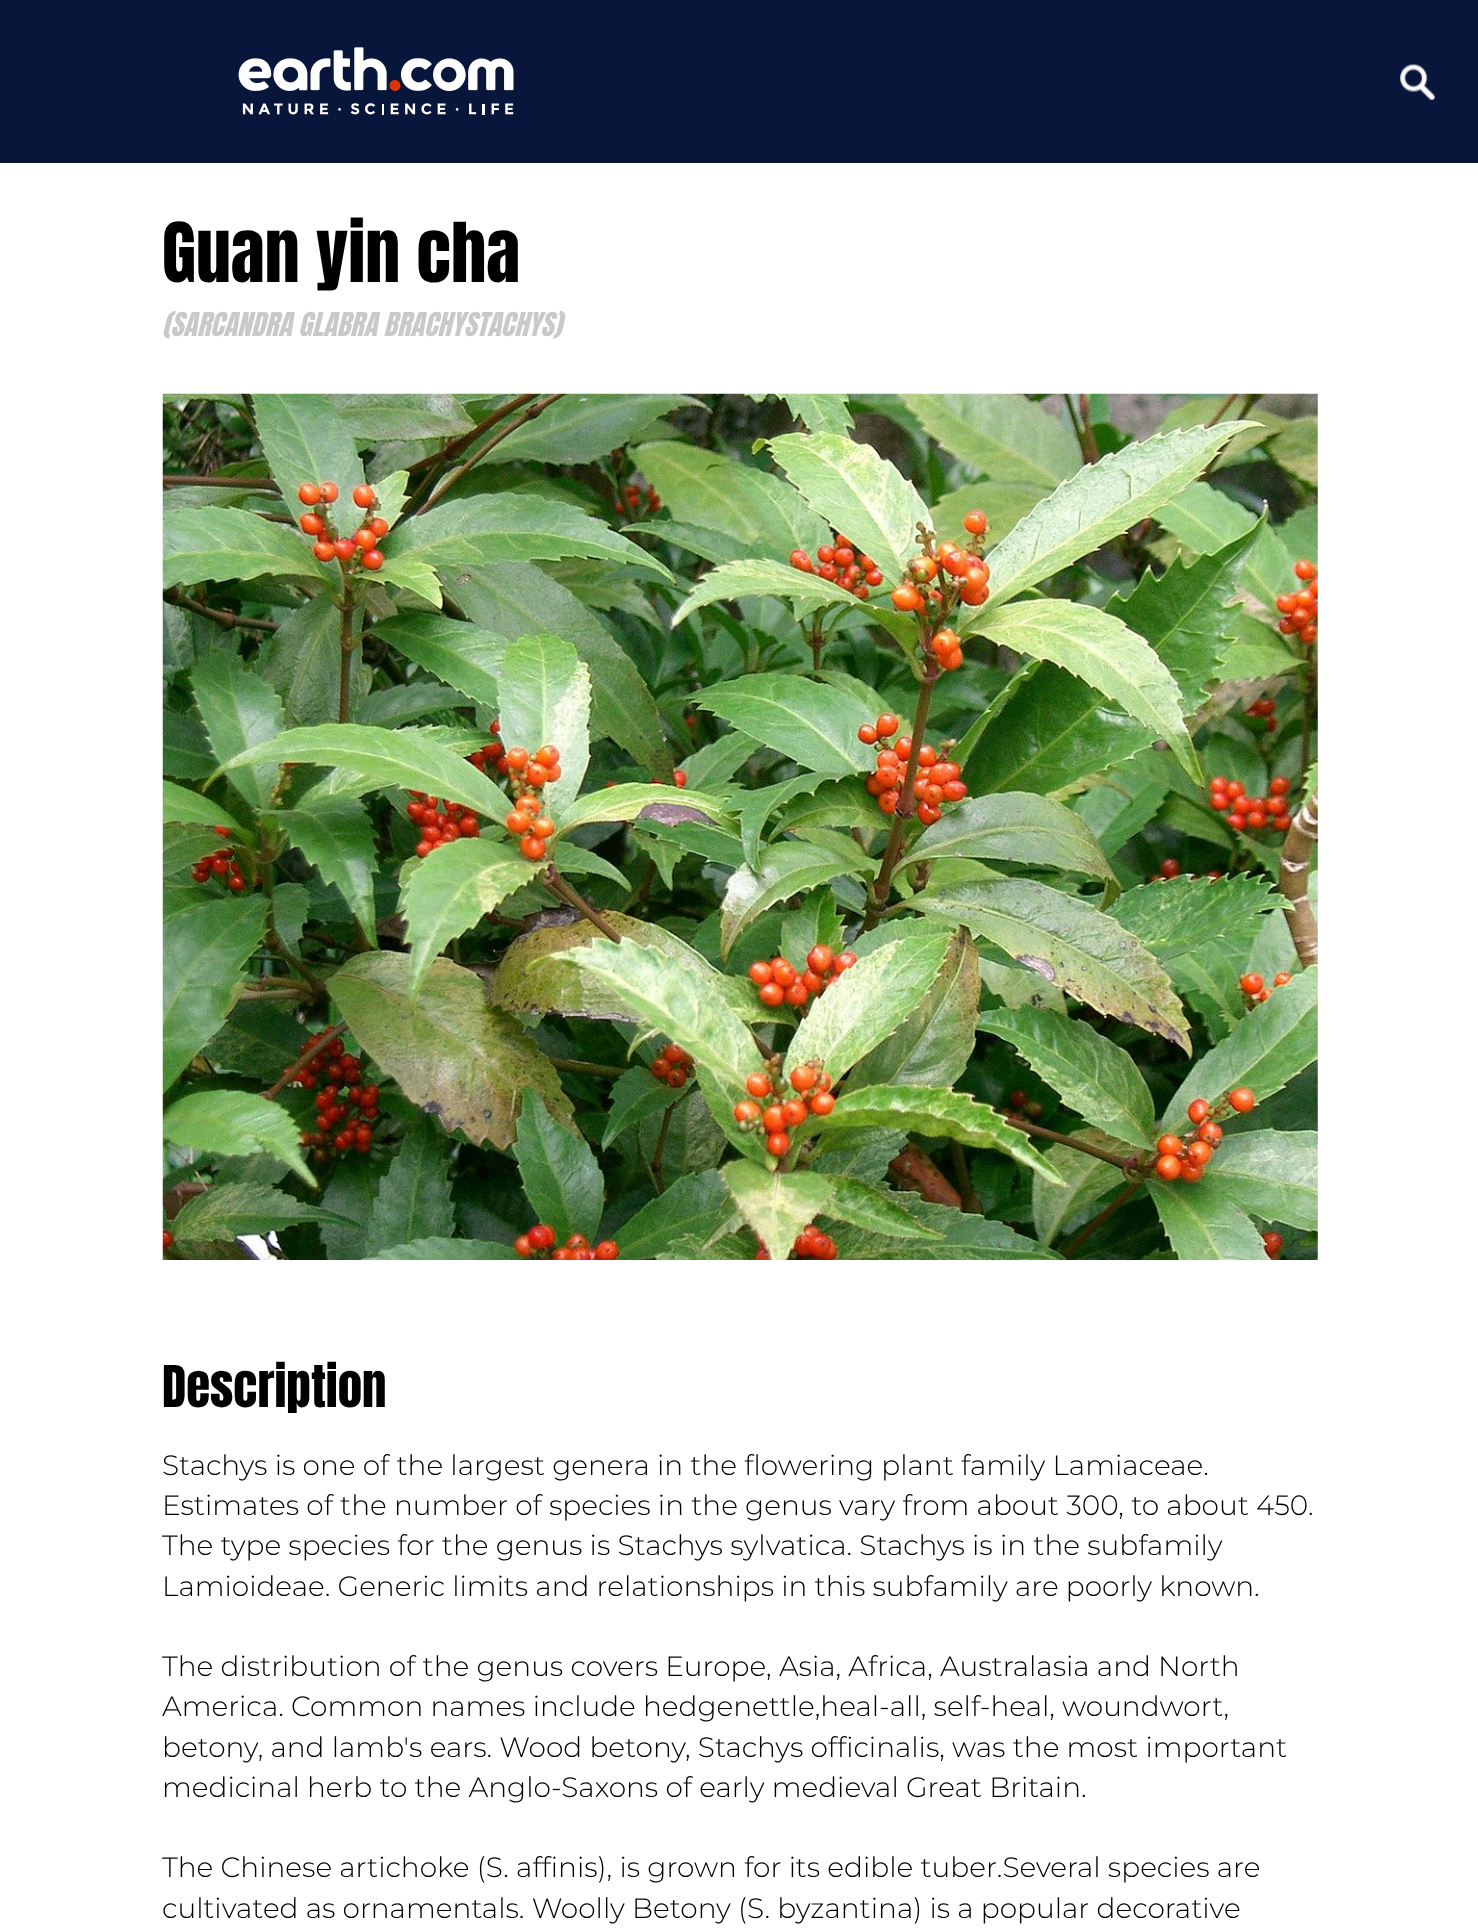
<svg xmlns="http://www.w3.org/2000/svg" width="1478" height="1930">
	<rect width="100%" height="100%" fill="#FFFFFF" />
	<rect x="0" y="0" width="1478" height="163" fill="#08163B" />
	<image x="238" y="47" width="276" height="68" href="assets/img1.png" />
	<image x="1400" y="64" width="35" height="36" href="assets/img2.png" />
	<text x="162" y="282" font-family="Anton" font-size="70" fill="#000000">Guan yin cha</text>
	<text x="162" y="336" font-family="Anton" font-size="28" font-style="italic" fill="#C9C9C9">(SARCANDRA GLABRA BRACHYSTACHYS)</text>
	<image x="162" y="393" width="1156" height="867" href="assets/img3.png" />
	<text x="162" y="1407" font-family="Anton" font-size="49" fill="#000000">Description</text>
	<g font-family="Montserrat" font-size="28" font-weight="300" fill="#000000">
		<text x="162" y="1475">Stachys is one of the largest genera in the flowering plant family Lamiaceae.</text>
		<text x="162" y="1515">Estimates of the number of species in the genus vary from about 300, to about 450.</text>
		<text x="162" y="1555">The type species for the genus is Stachys sylvatica. Stachys is in the subfamily</text>
		<text x="162" y="1596">Lamioideae. Generic limits and relationships in this subfamily are poorly known.</text>
		<text x="162" y="1676">The distribution of the genus covers Europe, Asia, Africa, Australasia and North</text>
		<text x="162" y="1716">America. Common names include hedgenettle,heal-all, self-heal, woundwort,</text>
		<text x="162" y="1757">betony, and lamb's ears. Wood betony, Stachys officinalis, was the most important</text>
		<text x="162" y="1797">medicinal herb to the Anglo-Saxons of early medieval Great Britain.</text>
		<text x="162" y="1877">The Chinese artichoke (S. affinis), is grown for its edible tuber.Several species are</text>
		<text x="162" y="1918">cultivated as ornamentals. Woolly Betony (S. byzantina) is a popular decorative</text>
	</g>
</svg>
